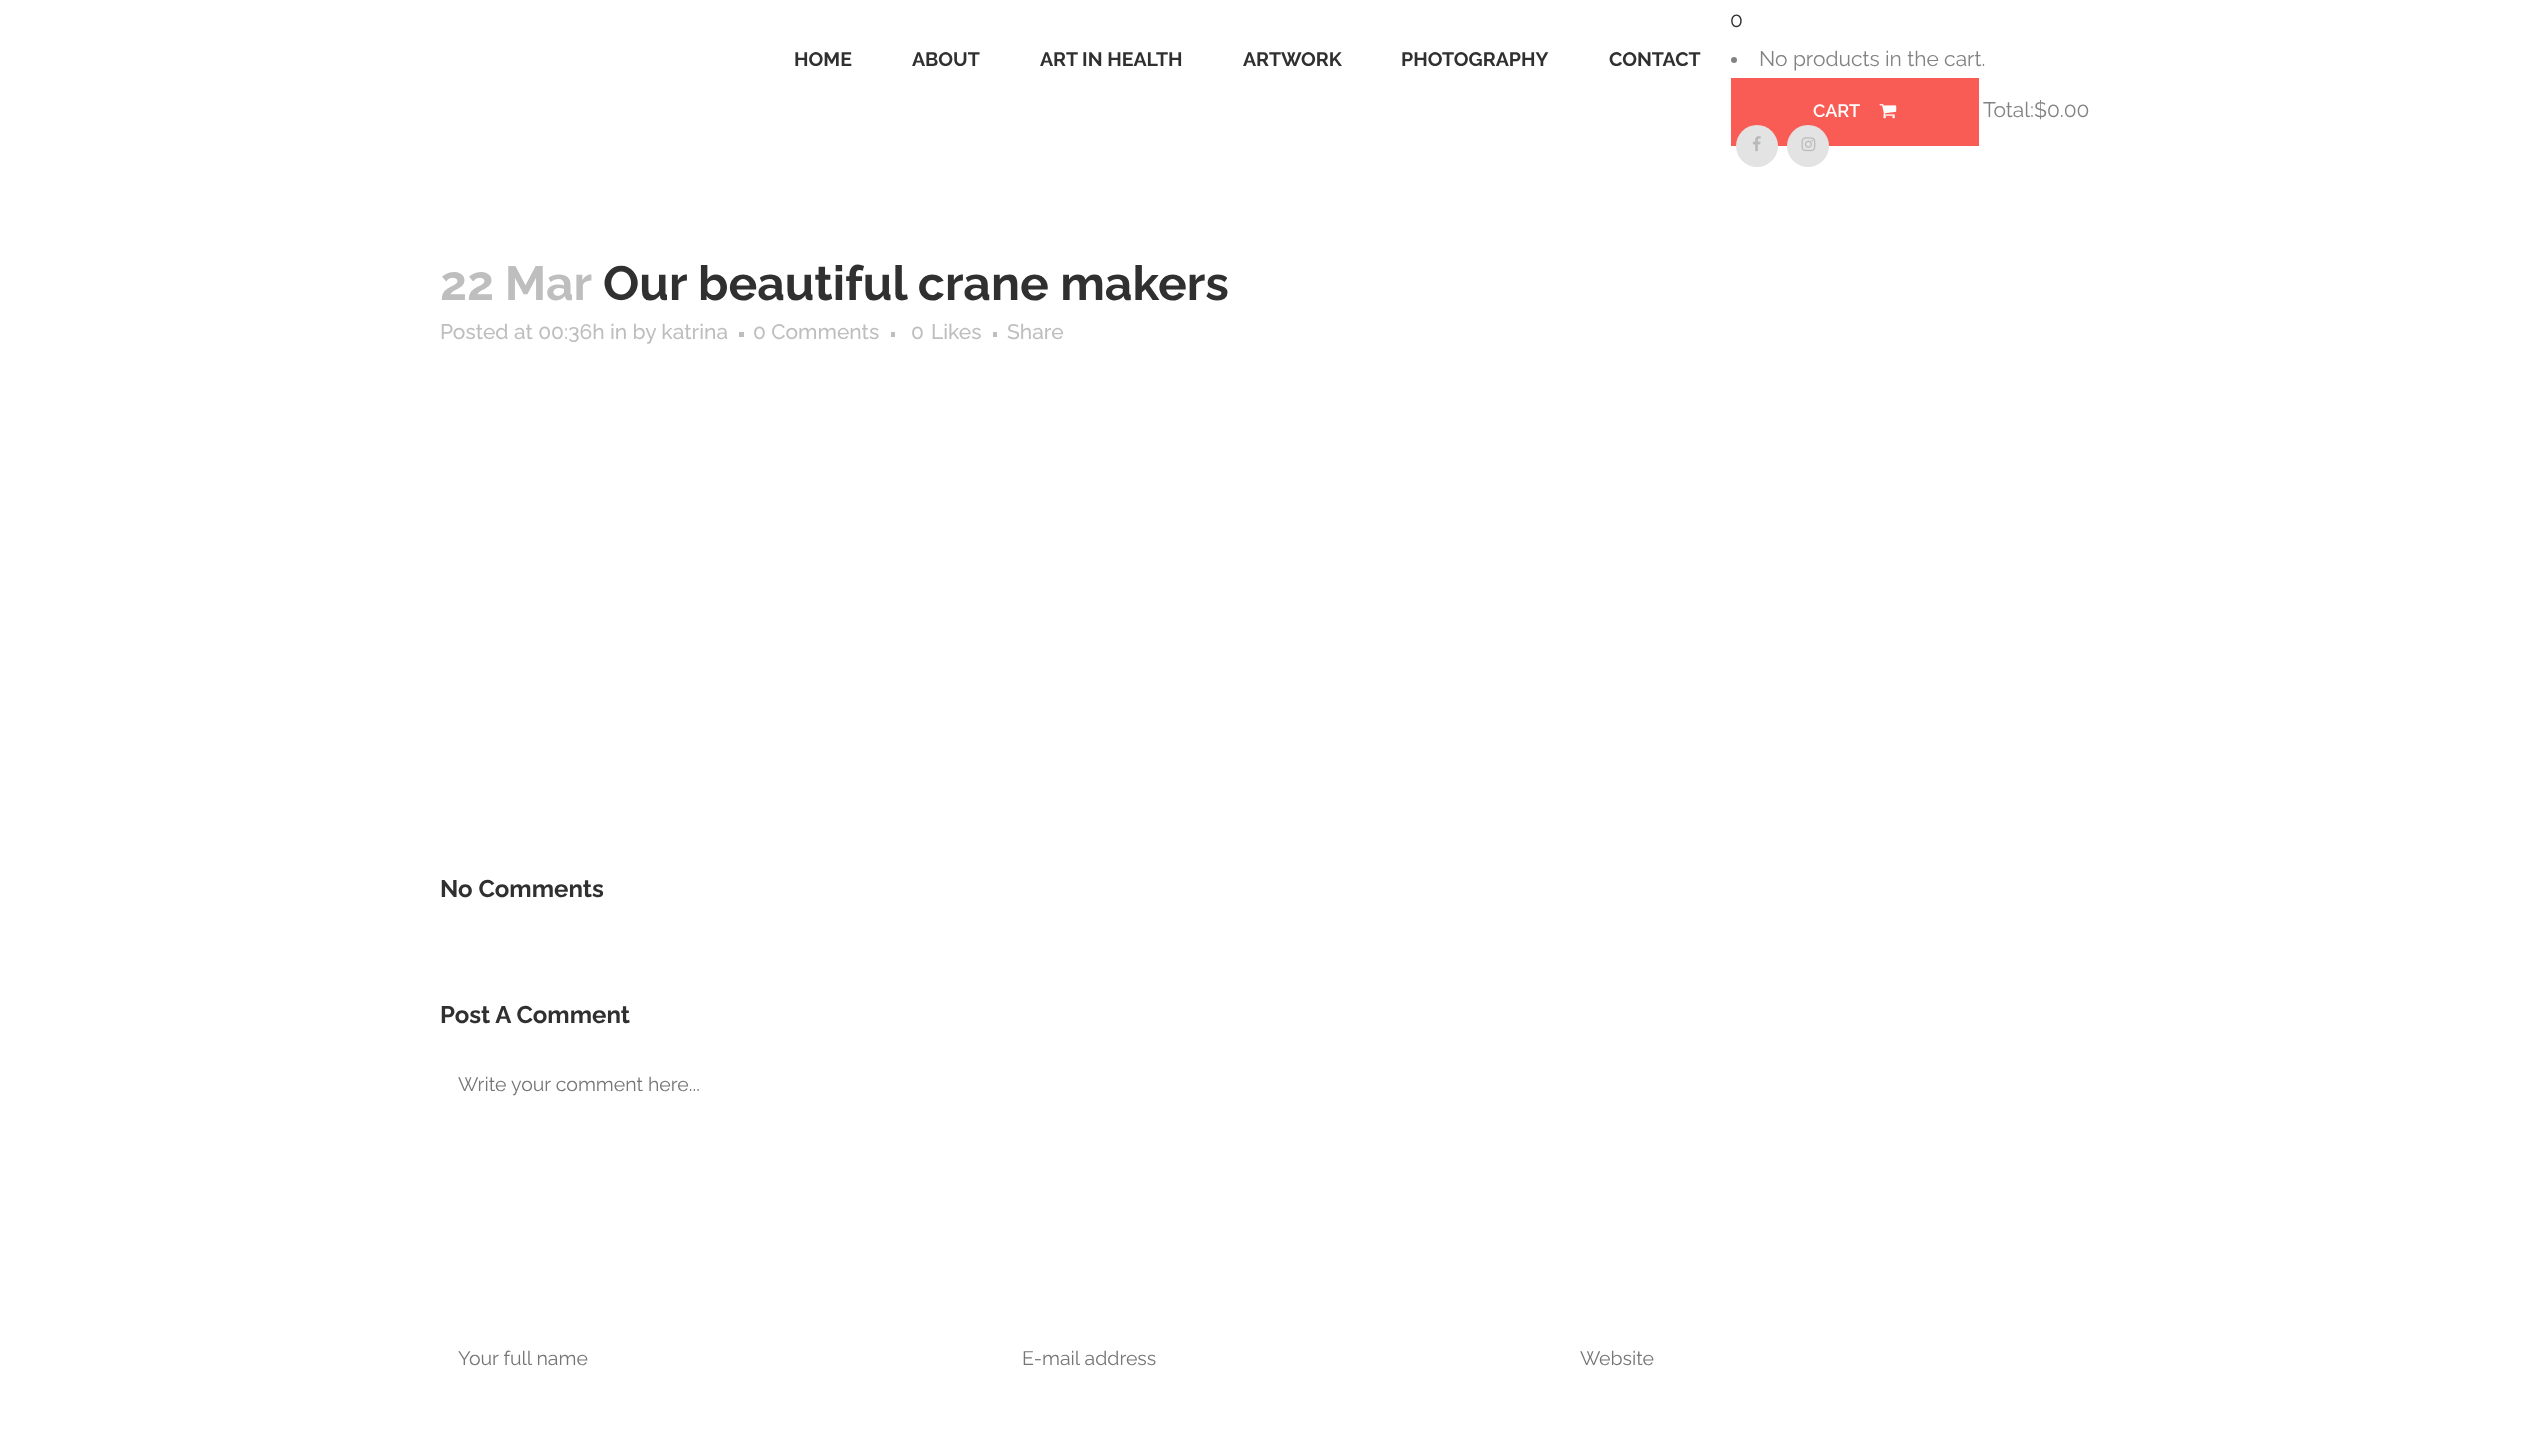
<svg xmlns="http://www.w3.org/2000/svg" width="2529" height="1439">
	<rect width="100%" height="100%" fill="#FFFFFF" />
	<g font-family="Raleway" font-size="19.5" font-weight="700" fill="#303030">
		<text x="794" y="66">HOME</text>
		<text x="912" y="66">ABOUT</text>
		<text x="1040" y="66">ART IN HEALTH</text>
		<text x="1243" y="66">ARTWORK</text>
		<text x="1401" y="66">PHOTOGRAPHY</text>
		<text x="1609" y="66">CONTACT</text>
	</g>
	<text x="1730" y="27" font-family="Raleway" font-size="21" fill="#303030">0</text>
	<circle cx="1734" cy="60" r="3" fill="#828282" />
	<text x="1759" y="66" font-family="Raleway" font-size="21" fill="#828282">No products in the cart.</text>
	<rect x="1731" y="78" width="248" height="68" fill="#F95C55" />
	<text x="1813" y="117" font-family="Raleway" font-size="18" font-weight="600" fill="#FFFFFF">CART</text>
	<image x="1879" y="104" width="18" height="15" href="assets/img1.png" />
	<text x="1983" y="117" font-family="Raleway" font-size="21" fill="#828282">Total:$0.00</text>
	<circle cx="1757" cy="146" r="21" fill="#E3E3E3" />
	<image x="1752" y="136" width="9" height="16" href="assets/img2.png" />
	<circle cx="1808" cy="146" r="21" fill="#E3E3E3" />
	<image x="1801" y="137" width="15" height="15" href="assets/img3.png" />
	<text x="440" y="300" word-spacing="-1" font-family="Raleway" font-size="48" font-weight="700" fill="#BEBEBE">22 Mar</text>
	<text x="603" y="300" font-family="Raleway" font-size="48" font-weight="700" fill="#303030">Our beautiful crane makers</text>
	<text x="440" y="339" font-family="Raleway" font-size="21" font-weight="500" fill="#BEBEBE">Posted at 00:36h in by katrina</text>
	<rect x="739" y="332" width="5" height="5" fill="#BEBEBE" />
	<text x="753" y="339" font-family="Raleway" font-size="21" font-weight="500" fill="#BEBEBE">0 Comments</text>
	<rect x="891" y="332" width="4" height="5" fill="#BEBEBE" />
	<g font-family="Raleway" font-size="21" font-weight="500" fill="#BEBEBE">
		<text x="911" y="339">0</text>
		<text x="931" y="339">Likes</text>
	</g>
	<rect x="993" y="332" width="4" height="5" fill="#BEBEBE" />
	<text x="1007" y="339" font-family="Raleway" font-size="21" font-weight="500" fill="#BEBEBE">Share</text>
	<g font-family="Raleway" font-size="24" font-weight="700" fill="#303030">
		<text x="440" y="897">No Comments</text>
		<text x="440" y="1023">Post A Comment</text>
	</g>
	<g font-family="Raleway" font-size="19.5" fill="#757575">
		<text x="458" y="1091">Write your comment here...</text>
		<text x="458" y="1365">Your full name</text>
		<text x="1022" y="1365">E-mail address</text>
		<text x="1580" y="1365">Website</text>
	</g>
</svg>
